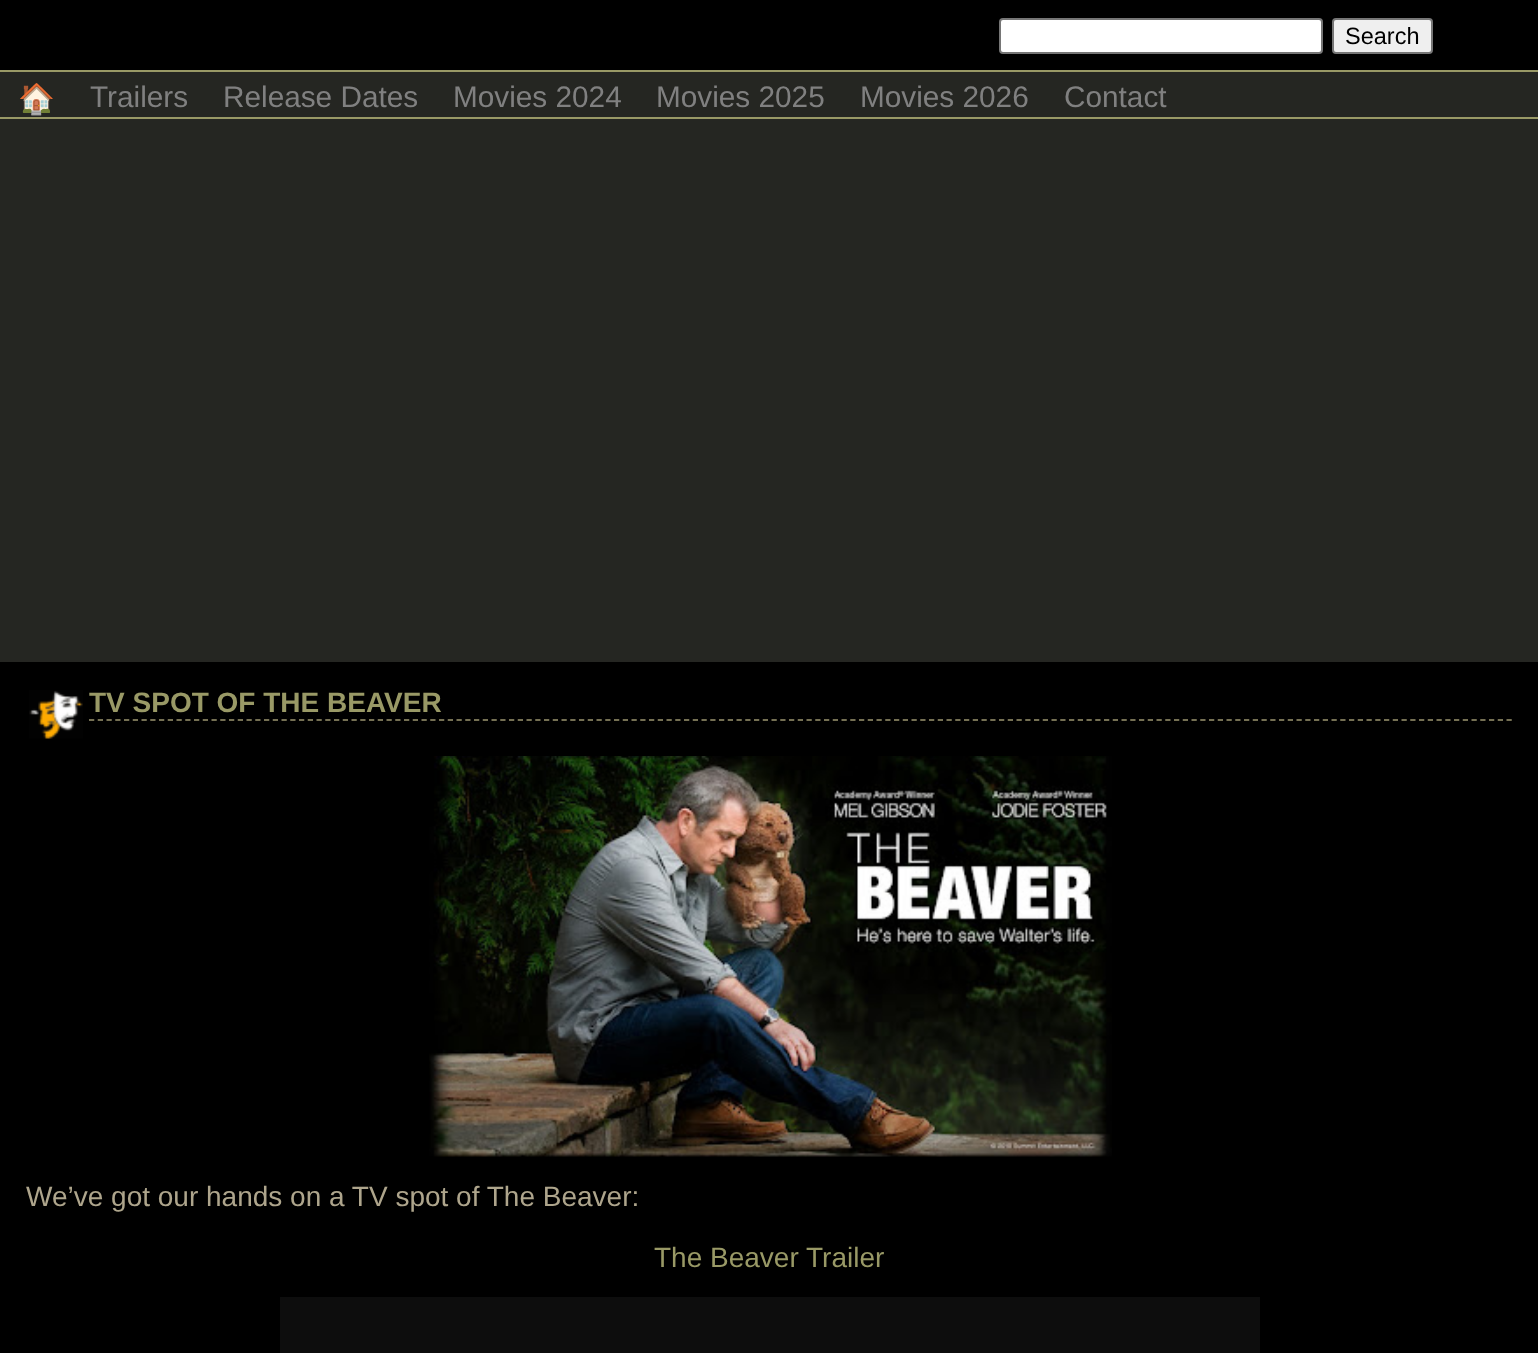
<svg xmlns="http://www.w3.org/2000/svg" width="1538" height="1353">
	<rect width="100%" height="100%" fill="#252622" />
	<rect x="0" y="0" width="1538" height="70" fill="#000000" />
	<rect x="1000" y="19" width="322" height="34" rx="3" fill="#FFFFFF" stroke="#767676" stroke-width="2" />
	<rect x="1333" y="19" width="99" height="34" rx="3" fill="#EFEFEF" stroke="#767676" stroke-width="2" />
	<text x="1345" y="44" font-family="Liberation Sans" font-size="23.5" fill="#000000">Search</text>
	<rect x="0" y="70" width="1538" height="2" fill="#999966" />
	<rect x="0" y="117" width="1538" height="2" fill="#999966" />
	<text x="18" y="109" font-family="Noto Color Emoji" font-size="29.75" fill="#808080">🏠</text>
	<g font-family="Liberation Sans" font-size="29.75" fill="#808080">
		<text x="90" y="107">Trailers</text>
		<text x="223" y="107">Release Dates</text>
		<text x="453" y="107">Movies 2024</text>
		<text x="656" y="107">Movies 2025</text>
		<text x="860" y="107">Movies 2026</text>
		<text x="1064" y="107">Contact</text>
	</g>
	<rect x="0" y="662" width="1538" height="691" fill="#000000" />
	<image x="29" y="690" width="54" height="49" href="assets/img1.png" />
	<path d="M89 720H1512" fill="none" stroke="#767154" stroke-width="1.8" stroke-dasharray="5.25 3.5" />
	<text x="89" y="712" font-family="Liberation Sans" font-size="28" font-weight="700" fill="#999966">TV SPOT OF THE BEAVER</text>
	<image x="429" y="756" width="683" height="401" href="assets/img2.png" />
	<text x="26" y="1206" font-family="Liberation Sans" font-size="28" fill="#AEA58C">We’ve got our hands on a TV spot of The Beaver:</text>
	<text x="654" y="1267" font-family="Liberation Sans" font-size="28" fill="#999966">The Beaver Trailer</text>
	<rect x="280" y="1297" width="980" height="56" fill="#0D0D0D" />
</svg>
